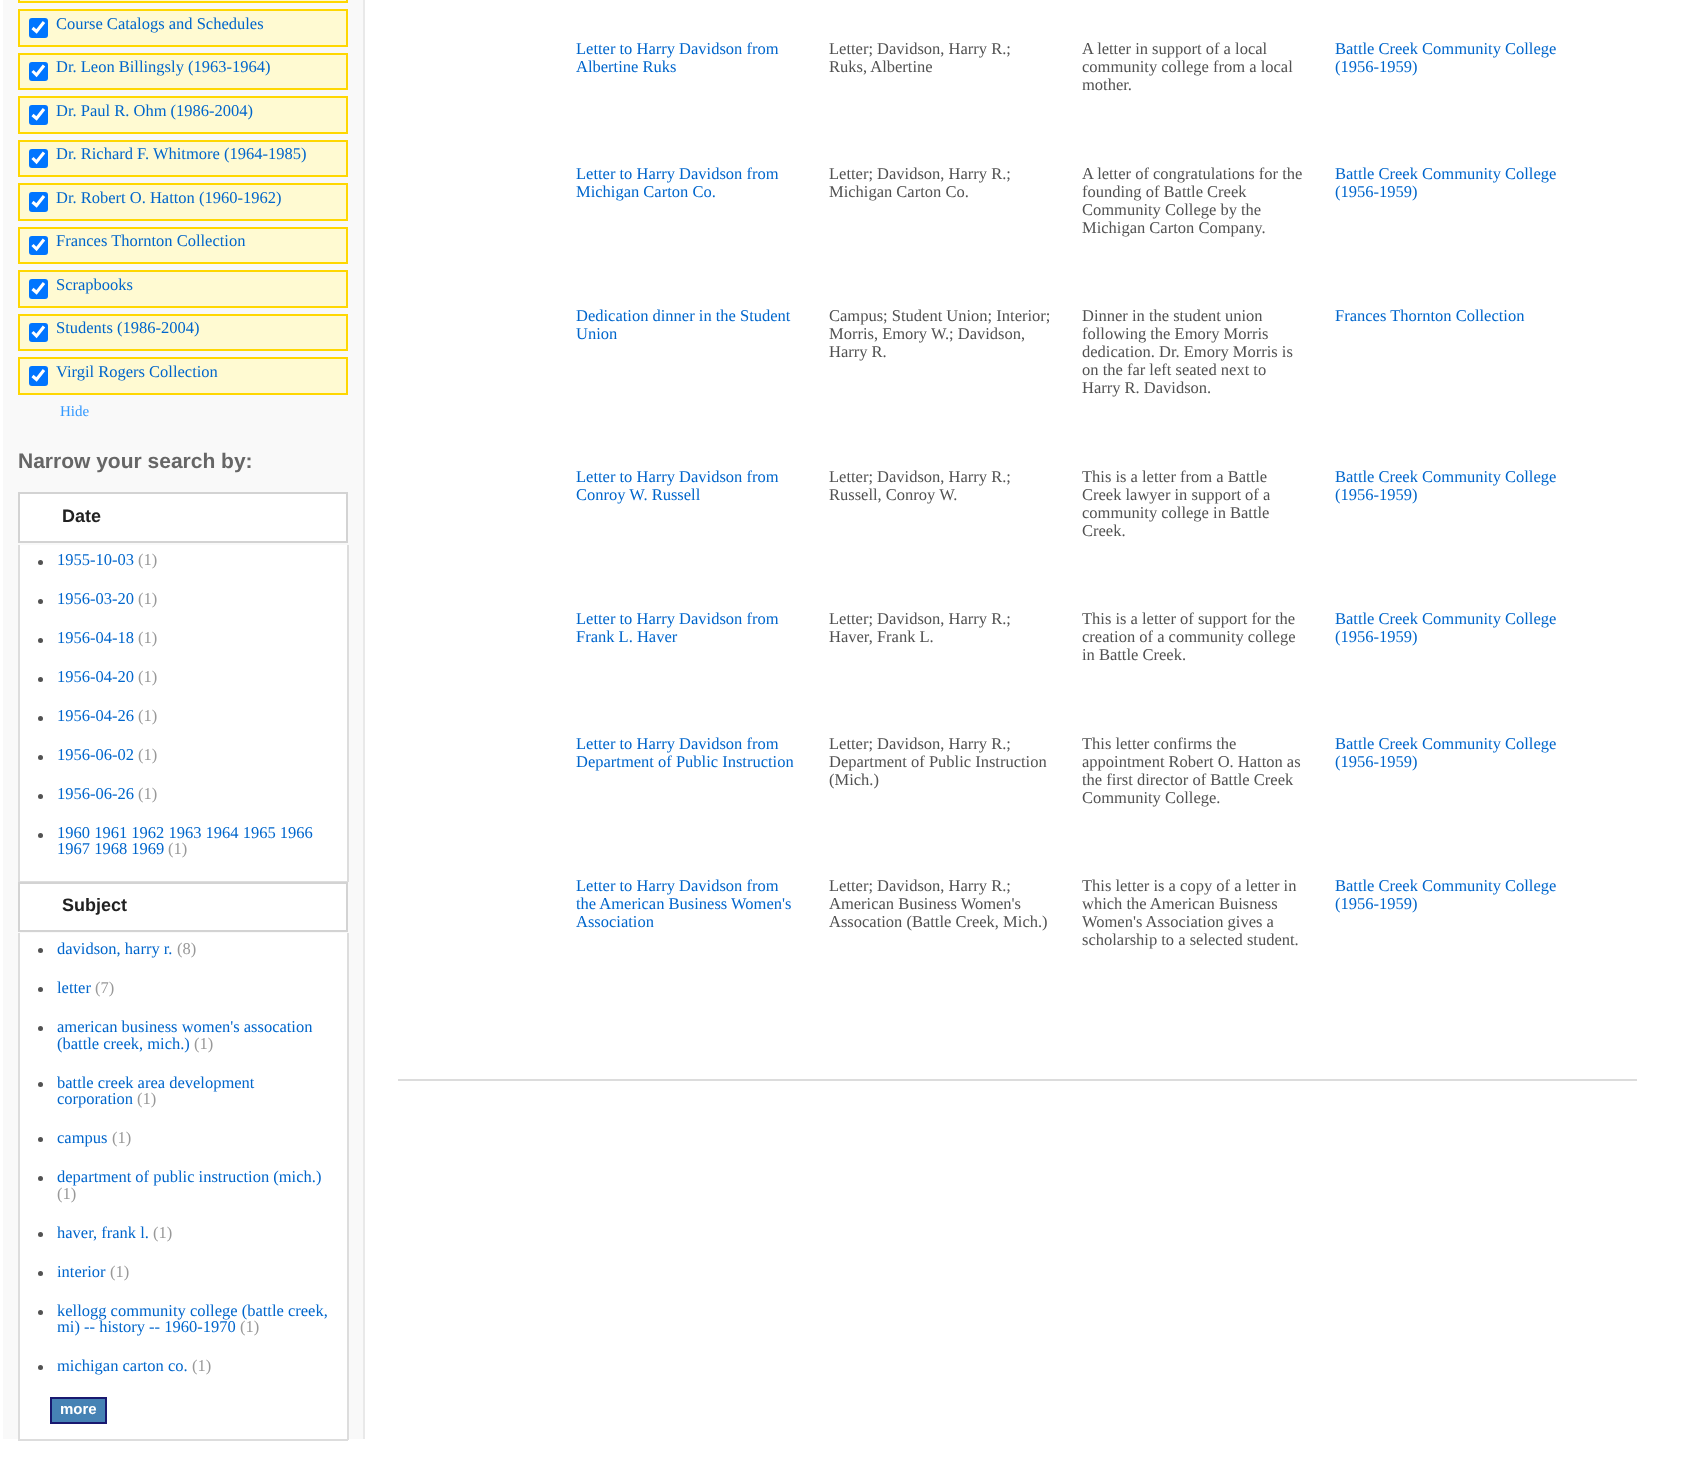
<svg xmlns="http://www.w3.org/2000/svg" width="1703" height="1457">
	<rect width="100%" height="100%" fill="#FFFFFF" />
	<rect x="3" y="0" width="360" height="1439" fill="#F9F9F9" />
	<rect x="363" y="0" width="2" height="1439" fill="#E9E9E9" />
	<rect x="19" y="-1" width="328" height="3" fill="#FFFAD2" stroke="#FFD701" stroke-width="2" />
	<rect x="19" y="10" width="328" height="36" fill="#FFFAD2" stroke="#FFD701" stroke-width="2" />
	<rect x="29" y="18" width="19" height="20" rx="3" fill="#0075FF" />
	<path d="M32.5 28L36.5 31.5L44 22" fill="none" stroke="#FFFFFF" stroke-width="3.1" />
	<text x="56" y="29" font-family="Liberation Serif" font-size="16.5" fill="#0066CC">Course Catalogs and Schedules</text>
	<rect x="19" y="54" width="328" height="35" fill="#FFFAD2" stroke="#FFD701" stroke-width="2" />
	<rect x="29" y="62" width="19" height="19" rx="3" fill="#0075FF" />
	<path d="M32.5 71L36.5 75L44 65.5" fill="none" stroke="#FFFFFF" stroke-width="3.1" />
	<text x="56" y="72" font-family="Liberation Serif" font-size="16.5" fill="#0066CC">Dr. Leon Billingsly (1963-1964)</text>
	<rect x="19" y="97" width="328" height="36" fill="#FFFAD2" stroke="#FFD701" stroke-width="2" />
	<rect x="29" y="105" width="19" height="20" rx="3" fill="#0075FF" />
	<path d="M32.5 115L36.5 118.5L44 109" fill="none" stroke="#FFFFFF" stroke-width="3.1" />
	<text x="56" y="116" font-family="Liberation Serif" font-size="16.5" fill="#0066CC">Dr. Paul R. Ohm (1986-2004)</text>
	<rect x="19" y="141" width="328" height="35" fill="#FFFAD2" stroke="#FFD701" stroke-width="2" />
	<rect x="29" y="149" width="19" height="19" rx="3" fill="#0075FF" />
	<path d="M32.5 158L36.5 162L44 152.5" fill="none" stroke="#FFFFFF" stroke-width="3.1" />
	<text x="56" y="159" font-family="Liberation Serif" font-size="16.5" fill="#0066CC">Dr. Richard F. Whitmore (1964-1985)</text>
	<rect x="19" y="184" width="328" height="36" fill="#FFFAD2" stroke="#FFD701" stroke-width="2" />
	<rect x="29" y="192" width="19" height="20" rx="3" fill="#0075FF" />
	<path d="M32.5 202L36.5 205.5L44 196" fill="none" stroke="#FFFFFF" stroke-width="3.1" />
	<text x="56" y="203" font-family="Liberation Serif" font-size="16.5" fill="#0066CC">Dr. Robert O. Hatton (1960-1962)</text>
	<rect x="19" y="228" width="328" height="35" fill="#FFFAD2" stroke="#FFD701" stroke-width="2" />
	<rect x="29" y="236" width="19" height="19" rx="3" fill="#0075FF" />
	<path d="M32.5 245L36.5 249L44 239.5" fill="none" stroke="#FFFFFF" stroke-width="3.1" />
	<text x="56" y="246" font-family="Liberation Serif" font-size="16.5" fill="#0066CC">Frances Thornton Collection</text>
	<rect x="19" y="271" width="328" height="36" fill="#FFFAD2" stroke="#FFD701" stroke-width="2" />
	<rect x="29" y="279" width="19" height="20" rx="3" fill="#0075FF" />
	<path d="M32.5 289L36.5 292.5L44 283" fill="none" stroke="#FFFFFF" stroke-width="3.1" />
	<text x="56" y="290" font-family="Liberation Serif" font-size="16.5" fill="#0066CC">Scrapbooks</text>
	<rect x="19" y="315" width="328" height="35" fill="#FFFAD2" stroke="#FFD701" stroke-width="2" />
	<rect x="29" y="323" width="19" height="19" rx="3" fill="#0075FF" />
	<path d="M32.5 332L36.5 336L44 326.5" fill="none" stroke="#FFFFFF" stroke-width="3.1" />
	<text x="56" y="333" font-family="Liberation Serif" font-size="16.5" fill="#0066CC">Students (1986-2004)</text>
	<rect x="19" y="358" width="328" height="36" fill="#FFFAD2" stroke="#FFD701" stroke-width="2" />
	<rect x="29" y="366" width="19" height="20" rx="3" fill="#0075FF" />
	<path d="M32.5 376L36.5 379.5L44 370" fill="none" stroke="#FFFFFF" stroke-width="3.1" />
	<text x="56" y="377" font-family="Liberation Serif" font-size="16.5" fill="#0066CC">Virgil Rogers Collection</text>
	<text x="60" y="416" font-family="Liberation Serif" font-size="15" fill="#3399FF">Hide</text>
	<text x="18" y="468" font-family="Liberation Sans" font-size="21" font-weight="700" fill="#666666">Narrow your search by:</text>
	<rect x="19" y="493" width="328" height="49" fill="#FFFFFF" stroke="#D3D3D3" stroke-width="2" />
	<text x="62" y="522" font-family="Liberation Sans" font-size="18" font-weight="700" fill="#212121">Date</text>
	<rect x="20" y="545" width="327" height="336" fill="#FFFFFF" />
	<rect x="347" y="545" width="2" height="337" fill="#DDDDDD" />
	<rect x="18" y="881" width="330" height="1" fill="#DDDDDD" />
	<rect x="18" y="545" width="2" height="337" fill="#DDDDDD" />
	<circle cx="40.5" cy="562.5" r="2.5" fill="#525252" />
	<text x="57" y="565" font-family="Liberation Serif" font-size="16.5" fill="#0066CC">1955-10-03</text>
	<text x="138" y="565" font-family="Liberation Serif" font-size="16.5" fill="#999999">(1)</text>
	<circle cx="40.5" cy="601.5" r="2.5" fill="#525252" />
	<text x="57" y="604" font-family="Liberation Serif" font-size="16.5" fill="#0066CC">1956-03-20</text>
	<text x="138" y="604" font-family="Liberation Serif" font-size="16.5" fill="#999999">(1)</text>
	<circle cx="40.5" cy="640.5" r="2.5" fill="#525252" />
	<text x="57" y="643" font-family="Liberation Serif" font-size="16.5" fill="#0066CC">1956-04-18</text>
	<text x="138" y="643" font-family="Liberation Serif" font-size="16.5" fill="#999999">(1)</text>
	<circle cx="40.5" cy="679.5" r="2.5" fill="#525252" />
	<text x="57" y="682" font-family="Liberation Serif" font-size="16.5" fill="#0066CC">1956-04-20</text>
	<text x="138" y="682" font-family="Liberation Serif" font-size="16.5" fill="#999999">(1)</text>
	<circle cx="40.5" cy="718.5" r="2.5" fill="#525252" />
	<text x="57" y="721" font-family="Liberation Serif" font-size="16.5" fill="#0066CC">1956-04-26</text>
	<text x="138" y="721" font-family="Liberation Serif" font-size="16.5" fill="#999999">(1)</text>
	<circle cx="40.5" cy="757.5" r="2.5" fill="#525252" />
	<text x="57" y="760" font-family="Liberation Serif" font-size="16.5" fill="#0066CC">1956-06-02</text>
	<text x="138" y="760" font-family="Liberation Serif" font-size="16.5" fill="#999999">(1)</text>
	<circle cx="40.5" cy="796.5" r="2.5" fill="#525252" />
	<text x="57" y="799" font-family="Liberation Serif" font-size="16.5" fill="#0066CC">1956-06-26</text>
	<text x="138" y="799" font-family="Liberation Serif" font-size="16.5" fill="#999999">(1)</text>
	<circle cx="40.5" cy="835.5" r="2.5" fill="#525252" />
	<g font-family="Liberation Serif" font-size="16.5" fill="#0066CC">
		<text x="57" y="838">1960 1961 1962 1963 1964 1965 1966</text>
		<text x="57" y="854">1967 1968 1969</text>
	</g>
	<text x="168" y="854" font-family="Liberation Serif" font-size="16.5" fill="#999999">(1)</text>
	<rect x="19" y="883" width="328" height="48" fill="#FFFFFF" stroke="#D3D3D3" stroke-width="2" />
	<text x="62" y="911" font-family="Liberation Sans" font-size="18" font-weight="700" fill="#212121">Subject</text>
	<rect x="20" y="933" width="327" height="506" fill="#FFFFFF" />
	<rect x="347" y="933" width="2" height="507" fill="#DDDDDD" />
	<rect x="18" y="1439" width="330" height="2" fill="#DDDDDD" />
	<rect x="18" y="933" width="2" height="507" fill="#DDDDDD" />
	<circle cx="40.5" cy="950.5" r="2.5" fill="#525252" />
	<text x="57" y="954" font-family="Liberation Serif" font-size="16.5" fill="#0066CC">davidson, harry r.</text>
	<text x="177" y="954" font-family="Liberation Serif" font-size="16.5" fill="#999999">(8)</text>
	<circle cx="40.5" cy="989.5" r="2.5" fill="#525252" />
	<text x="57" y="993" font-family="Liberation Serif" font-size="16.5" fill="#0066CC">letter</text>
	<text x="95" y="993" font-family="Liberation Serif" font-size="16.5" fill="#999999">(7)</text>
	<circle cx="40.5" cy="1028.5" r="2.5" fill="#525252" />
	<g font-family="Liberation Serif" font-size="16.5" fill="#0066CC">
		<text x="57" y="1032">american business women's assocation</text>
		<text x="57" y="1049">(battle creek, mich.)</text>
	</g>
	<text x="194" y="1049" font-family="Liberation Serif" font-size="16.5" fill="#999999">(1)</text>
	<circle cx="40.5" cy="1084.5" r="2.5" fill="#525252" />
	<g font-family="Liberation Serif" font-size="16.5" fill="#0066CC">
		<text x="57" y="1088">battle creek area development</text>
		<text x="57" y="1104">corporation</text>
	</g>
	<text x="137" y="1104" font-family="Liberation Serif" font-size="16.5" fill="#999999">(1)</text>
	<circle cx="40.5" cy="1139.5" r="2.5" fill="#525252" />
	<text x="57" y="1143" font-family="Liberation Serif" font-size="16.5" fill="#0066CC">campus</text>
	<text x="112" y="1143" font-family="Liberation Serif" font-size="16.5" fill="#999999">(1)</text>
	<circle cx="40.5" cy="1178.5" r="2.5" fill="#525252" />
	<text x="57" y="1182" font-family="Liberation Serif" font-size="16.5" fill="#0066CC">department of public instruction (mich.)</text>
	<text x="57" y="1199" font-family="Liberation Serif" font-size="16.5" fill="#999999">(1)</text>
	<circle cx="40.5" cy="1234.5" r="2.5" fill="#525252" />
	<text x="57" y="1238" font-family="Liberation Serif" font-size="16.5" fill="#0066CC">haver, frank l.</text>
	<text x="153" y="1238" font-family="Liberation Serif" font-size="16.5" fill="#999999">(1)</text>
	<circle cx="40.5" cy="1273.5" r="2.5" fill="#525252" />
	<text x="57" y="1277" font-family="Liberation Serif" font-size="16.5" fill="#0066CC">interior</text>
	<text x="110" y="1277" font-family="Liberation Serif" font-size="16.5" fill="#999999">(1)</text>
	<circle cx="40.5" cy="1312.5" r="2.5" fill="#525252" />
	<g font-family="Liberation Serif" font-size="16.5" fill="#0066CC">
		<text x="57" y="1316">kellogg community college (battle creek,</text>
		<text x="57" y="1332">mi) -- history -- 1960-1970</text>
	</g>
	<text x="240" y="1332" font-family="Liberation Serif" font-size="16.5" fill="#999999">(1)</text>
	<circle cx="40.5" cy="1367.5" r="2.5" fill="#525252" />
	<text x="57" y="1371" font-family="Liberation Serif" font-size="16.5" fill="#0066CC">michigan carton co.</text>
	<text x="192" y="1371" font-family="Liberation Serif" font-size="16.5" fill="#999999">(1)</text>
	<rect x="51" y="1398" width="55" height="25" fill="#4682B4" stroke="#191970" stroke-width="2" />
	<text x="60" y="1414" font-family="Liberation Sans" font-size="15" font-weight="700" fill="#FFFFFF">more</text>
	<g font-family="Liberation Serif" font-size="16.5" fill="#0066CC">
		<text x="576" y="54">Letter to Harry Davidson from</text>
		<text x="576" y="72">Albertine Ruks</text>
	</g>
	<g font-family="Liberation Serif" font-size="16.5" fill="#525252">
		<text x="829" y="54">Letter; Davidson, Harry R.;</text>
		<text x="829" y="72">Ruks, Albertine</text>
		<text x="1082" y="54">A letter in support of a local</text>
		<text x="1082" y="72">community college from a local</text>
		<text x="1082" y="90">mother.</text>
	</g>
	<g font-family="Liberation Serif" font-size="16.5" fill="#0066CC">
		<text x="1335" y="54">Battle Creek Community College</text>
		<text x="1335" y="72">(1956-1959)</text>
		<text x="576" y="179">Letter to Harry Davidson from</text>
		<text x="576" y="197">Michigan Carton Co.</text>
	</g>
	<g font-family="Liberation Serif" font-size="16.5" fill="#525252">
		<text x="829" y="179">Letter; Davidson, Harry R.;</text>
		<text x="829" y="197">Michigan Carton Co.</text>
		<text x="1082" y="179">A letter of congratulations for the</text>
		<text x="1082" y="197">founding of Battle Creek</text>
		<text x="1082" y="215">Community College by the</text>
		<text x="1082" y="233">Michigan Carton Company.</text>
	</g>
	<g font-family="Liberation Serif" font-size="16.5" fill="#0066CC">
		<text x="1335" y="179">Battle Creek Community College</text>
		<text x="1335" y="197">(1956-1959)</text>
		<text x="576" y="321">Dedication dinner in the Student</text>
		<text x="576" y="339">Union</text>
	</g>
	<g font-family="Liberation Serif" font-size="16.5" fill="#525252">
		<text x="829" y="321">Campus; Student Union; Interior;</text>
		<text x="829" y="339">Morris, Emory W.; Davidson,</text>
		<text x="829" y="357">Harry R.</text>
		<text x="1082" y="321">Dinner in the student union</text>
		<text x="1082" y="339">following the Emory Morris</text>
		<text x="1082" y="357">dedication. Dr. Emory Morris is</text>
		<text x="1082" y="375">on the far left seated next to</text>
		<text x="1082" y="393">Harry R. Davidson.</text>
	</g>
	<g font-family="Liberation Serif" font-size="16.5" fill="#0066CC">
		<text x="1335" y="321">Frances Thornton Collection</text>
		<text x="576" y="482">Letter to Harry Davidson from</text>
		<text x="576" y="500">Conroy W. Russell</text>
	</g>
	<g font-family="Liberation Serif" font-size="16.5" fill="#525252">
		<text x="829" y="482">Letter; Davidson, Harry R.;</text>
		<text x="829" y="500">Russell, Conroy W.</text>
		<text x="1082" y="482">This is a letter from a Battle</text>
		<text x="1082" y="500">Creek lawyer in support of a</text>
		<text x="1082" y="518">community college in Battle</text>
		<text x="1082" y="536">Creek.</text>
	</g>
	<g font-family="Liberation Serif" font-size="16.5" fill="#0066CC">
		<text x="1335" y="482">Battle Creek Community College</text>
		<text x="1335" y="500">(1956-1959)</text>
		<text x="576" y="624">Letter to Harry Davidson from</text>
		<text x="576" y="642">Frank L. Haver</text>
	</g>
	<g font-family="Liberation Serif" font-size="16.5" fill="#525252">
		<text x="829" y="624">Letter; Davidson, Harry R.;</text>
		<text x="829" y="642">Haver, Frank L.</text>
		<text x="1082" y="624">This is a letter of support for the</text>
		<text x="1082" y="642">creation of a community college</text>
		<text x="1082" y="660">in Battle Creek.</text>
	</g>
	<g font-family="Liberation Serif" font-size="16.5" fill="#0066CC">
		<text x="1335" y="624">Battle Creek Community College</text>
		<text x="1335" y="642">(1956-1959)</text>
		<text x="576" y="749">Letter to Harry Davidson from</text>
		<text x="576" y="767">Department of Public Instruction</text>
	</g>
	<g font-family="Liberation Serif" font-size="16.5" fill="#525252">
		<text x="829" y="749">Letter; Davidson, Harry R.;</text>
		<text x="829" y="767">Department of Public Instruction</text>
		<text x="829" y="785">(Mich.)</text>
		<text x="1082" y="749">This letter confirms the</text>
		<text x="1082" y="767">appointment Robert O. Hatton as</text>
		<text x="1082" y="785">the first director of Battle Creek</text>
		<text x="1082" y="803">Community College.</text>
	</g>
	<g font-family="Liberation Serif" font-size="16.5" fill="#0066CC">
		<text x="1335" y="749">Battle Creek Community College</text>
		<text x="1335" y="767">(1956-1959)</text>
		<text x="576" y="891">Letter to Harry Davidson from</text>
		<text x="576" y="909">the American Business Women's</text>
		<text x="576" y="927">Association</text>
	</g>
	<g font-family="Liberation Serif" font-size="16.5" fill="#525252">
		<text x="829" y="891">Letter; Davidson, Harry R.;</text>
		<text x="829" y="909">American Business Women's</text>
		<text x="829" y="927">Assocation (Battle Creek, Mich.)</text>
		<text x="1082" y="891">This letter is a copy of a letter in</text>
		<text x="1082" y="909">which the American Buisness</text>
		<text x="1082" y="927">Women's Association gives a</text>
		<text x="1082" y="945">scholarship to a selected student.</text>
	</g>
	<g font-family="Liberation Serif" font-size="16.5" fill="#0066CC">
		<text x="1335" y="891">Battle Creek Community College</text>
		<text x="1335" y="909">(1956-1959)</text>
	</g>
	<rect x="398" y="1079" width="1239" height="2" fill="#DCDCDC" />
</svg>
